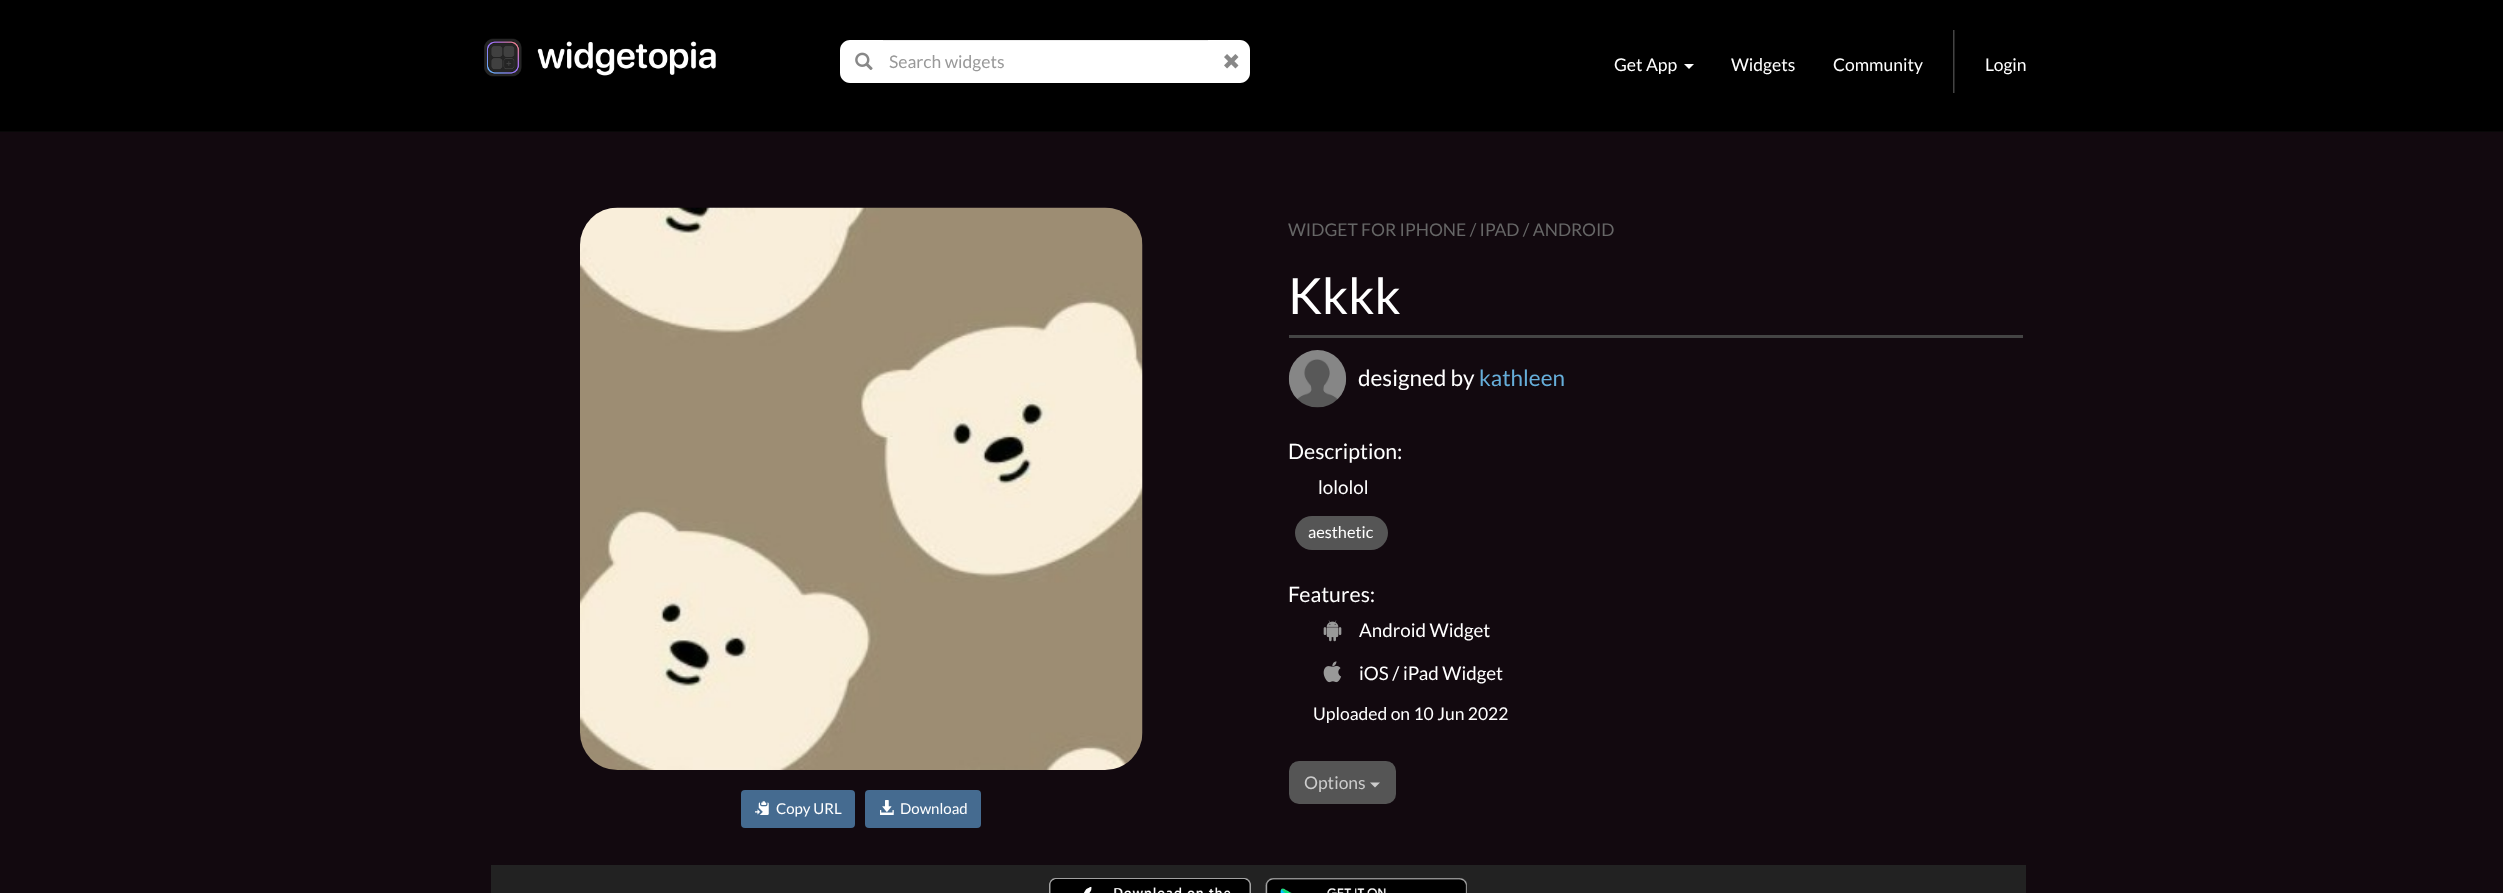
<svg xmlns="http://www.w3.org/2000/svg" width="2503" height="893">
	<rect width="100%" height="100%" fill="#12090F" />
	<rect x="0" y="0" width="2503" height="131" fill="#000000" />
	<rect x="0" y="131" width="2503" height="1" fill="#080808" />
	<image x="484" y="38" width="232" height="39" href="assets/img1.png" />
	<path d="M850 40H883V83H850C844.5 83 840 78.5 840 73V50C840 44.5 844.5 40 850 40Z" fill="#FFFFFF" />
	<image x="855" y="52" width="18" height="18" href="assets/img2.png" />
	<rect x="883" y="41" width="325" height="42" fill="#FFFFFF" />
	<rect x="883" y="40" width="325" height="1" fill="#ECECEC" />
	<text x="889" y="68" font-family="Lato" font-size="17.5" fill="#999999">Search widgets</text>
	<path d="M1208 40H1240C1245.5 40 1250 44.5 1250 50V73C1250 78.5 1245.5 83 1240 83H1208Z" fill="#FFFFFF" />
	<image x="1224" y="54" width="15" height="15" href="assets/img3.png" />
	<text x="1614" y="71" font-family="Lato" font-size="17.5" fill="#FFFFFF">Get App</text>
	<path d="M1684 64H1694L1689 69Z" fill="#FFFFFF" />
	<g font-family="Lato" font-size="17.5" fill="#FFFFFF">
		<text x="1731" y="71">Widgets</text>
		<text x="1833" y="71">Community</text>
	</g>
	<rect x="1954" y="30" width="1" height="63" fill="#222222" />
	<rect x="1953" y="30" width="1" height="63" fill="#444444" />
	<text x="1985" y="71" font-family="Lato" font-size="17.5" fill="#FFFFFF">Login</text>
	<text x="1288" y="236" font-family="Lato" font-size="17.5" fill="#666666">WIDGET FOR IPHONE / IPAD / ANDROID</text>
	<text x="1288" y="314" font-family="Lato" font-size="50" fill="#FFFFFF">Kkkk</text>
	<rect x="1289" y="335" width="734" height="3" fill="#444444" />
	<image x="1288" y="350" width="59" height="58" href="assets/img4.png" />
	<text x="1358" y="386" font-family="Lato" font-size="22.5" fill="#FFFFFF">designed by</text>
	<text x="1479" y="386" font-family="Lato" font-size="22.5" fill="#66AEDA">kathleen</text>
	<text x="1288" y="459" font-family="Lato" font-size="21.25" fill="#FFFFFF">Description:</text>
	<text x="1318" y="494" font-family="Lato" font-size="18.75" fill="#FFFFFF">lololol</text>
	<rect x="1295" y="516" width="93" height="34" rx="17" fill="#555555" />
	<text x="1308" y="538" font-family="Lato" font-size="16.25" fill="#FFFFFF">aesthetic</text>
	<text x="1288" y="602" font-family="Lato" font-size="21.25" fill="#FFFFFF">Features:</text>
	<image x="1323" y="620" width="19" height="22" href="assets/img5.png" />
	<text x="1359" y="637" font-family="Lato" font-size="18.75" fill="#FFFFFF">Android Widget</text>
	<image x="1323" y="661" width="19" height="22" href="assets/img6.png" />
	<text x="1359" y="680" font-family="Lato" font-size="18.75" fill="#FFFFFF">iOS / iPad Widget</text>
	<text x="1313" y="720" font-family="Lato" font-size="17.5" fill="#FFFFFF">Uploaded on 10 Jun 2022</text>
	<rect x="1289" y="761" width="107" height="43" rx="10" fill="#555555" />
	<text x="1304" y="789" font-family="Lato" font-size="17.5" fill="#CCCCCC">Options</text>
	<path d="M1370 782.5H1380L1375 787.5Z" fill="#CCCCCC" />
	<image x="580" y="207" width="563" height="563" href="assets/img7.png" />
	<rect x="741" y="790" width="114" height="38" rx="4" fill="#456B90" />
	<image x="755" y="801" width="14" height="14" href="assets/img8.png" />
	<text x="776" y="814" font-family="Lato" font-size="15" fill="#FFFFFF">Copy URL</text>
	<rect x="865" y="790" width="116" height="38" rx="4" fill="#456B90" />
	<image x="880" y="800" width="14" height="15" href="assets/img9.png" />
	<text x="900" y="814" font-family="Lato" font-size="15" fill="#FFFFFF">Download</text>
	<rect x="491" y="865" width="1535" height="28" fill="#222222" />
	<image x="1049" y="878" width="202" height="15" href="assets/img10.png" />
	<image x="1265" y="878" width="202" height="15" href="assets/img11.png" />
</svg>
